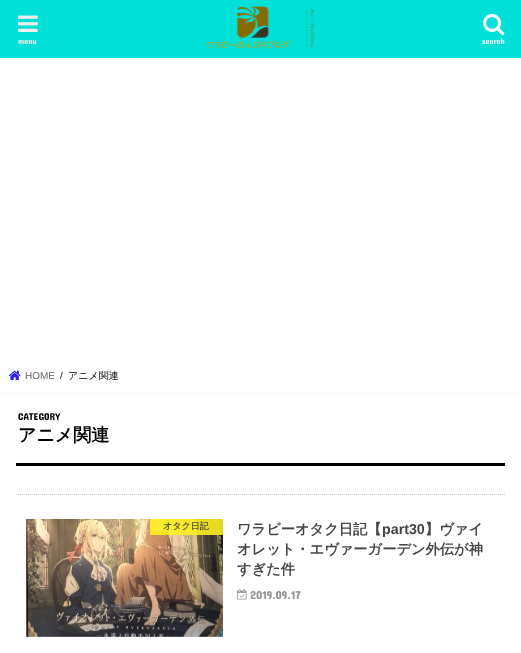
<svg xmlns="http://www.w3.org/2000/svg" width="521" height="653">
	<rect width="100%" height="100%" fill="#FFFFFF" />
	<rect x="0" y="0" width="521" height="58" fill="#00E0D8" />
	<image x="18" y="15" width="20" height="17" href="assets/img1.png" />
	<text x="18" y="44" font-family="Concert One" font-size="8" fill="#EEEEEE">menu</text>
	<image x="207" y="6" width="108" height="43" href="assets/img2.png" />
	<image x="483" y="13" width="22" height="23" href="assets/img3.png" />
	<text x="482" y="44" font-family="Concert One" font-size="8" fill="#EDF9FC">search</text>
	<rect x="0" y="393" width="521" height="1" fill="#F7F7F7" />
	<image x="8" y="370" width="13" height="11" href="assets/img4.png" />
	<text x="25" y="379" font-family="Liberation Sans" font-size="10" fill="#666666">HOME</text>
	<text x="60" y="379" font-family="Liberation Sans" font-size="10" fill="#000000">/</text>
	<text x="68" y="379" font-family="WenQuanYi Zen Hei" font-size="10" font-weight="500" fill="#000000">アニメ関連</text>
	<rect x="0" y="394" width="521" height="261" fill="#DDDDDD" filter="blur(0.5px)" />
	<rect x="0" y="394" width="521" height="259" fill="#FFFFFF" />
	<rect x="16" y="463" width="489" height="3" fill="#000000" />
	<text x="18" y="420" font-family="Concert One" font-size="10" fill="#000000">CATEGORY</text>
	<text x="18" y="441" font-family="WenQuanYi Zen Hei" font-size="18" font-weight="700" fill="#000000">アニメ関連</text>
	<path d="M16 494.5H505" fill="none" stroke="#CCCCCC" stroke-dasharray="1 1" />
	<image x="26" y="519" width="197" height="118" href="assets/img5.png" />
	<rect x="150" y="519" width="73" height="16" fill="#FCEE21" fill-opacity="0.9" />
	<text x="163" y="529" font-family="WenQuanYi Zen Hei" font-size="9" font-weight="700" fill="#565441">オタク日記</text>
	<text x="237" y="534" font-family="WenQuanYi Zen Hei" font-size="14.25" font-weight="700" fill="#444444">ワラビーオタク日記【</text>
	<text x="382" y="534" font-family="Liberation Sans" font-size="14.25" font-weight="700" fill="#444444">part30</text>
	<g font-family="WenQuanYi Zen Hei" font-size="14.25" font-weight="700" fill="#444444">
		<text x="425" y="534">】ヴァイ</text>
		<text x="237" y="554">オレット・エヴァーガーデン外伝が神</text>
		<text x="237" y="574">すぎた件</text>
	</g>
	<image x="237" y="589" width="10" height="11" href="assets/img6.png" />
	<text x="250" y="599" font-family="Concert One" font-size="11.5" fill="#949494">2019.09.17</text>
</svg>
